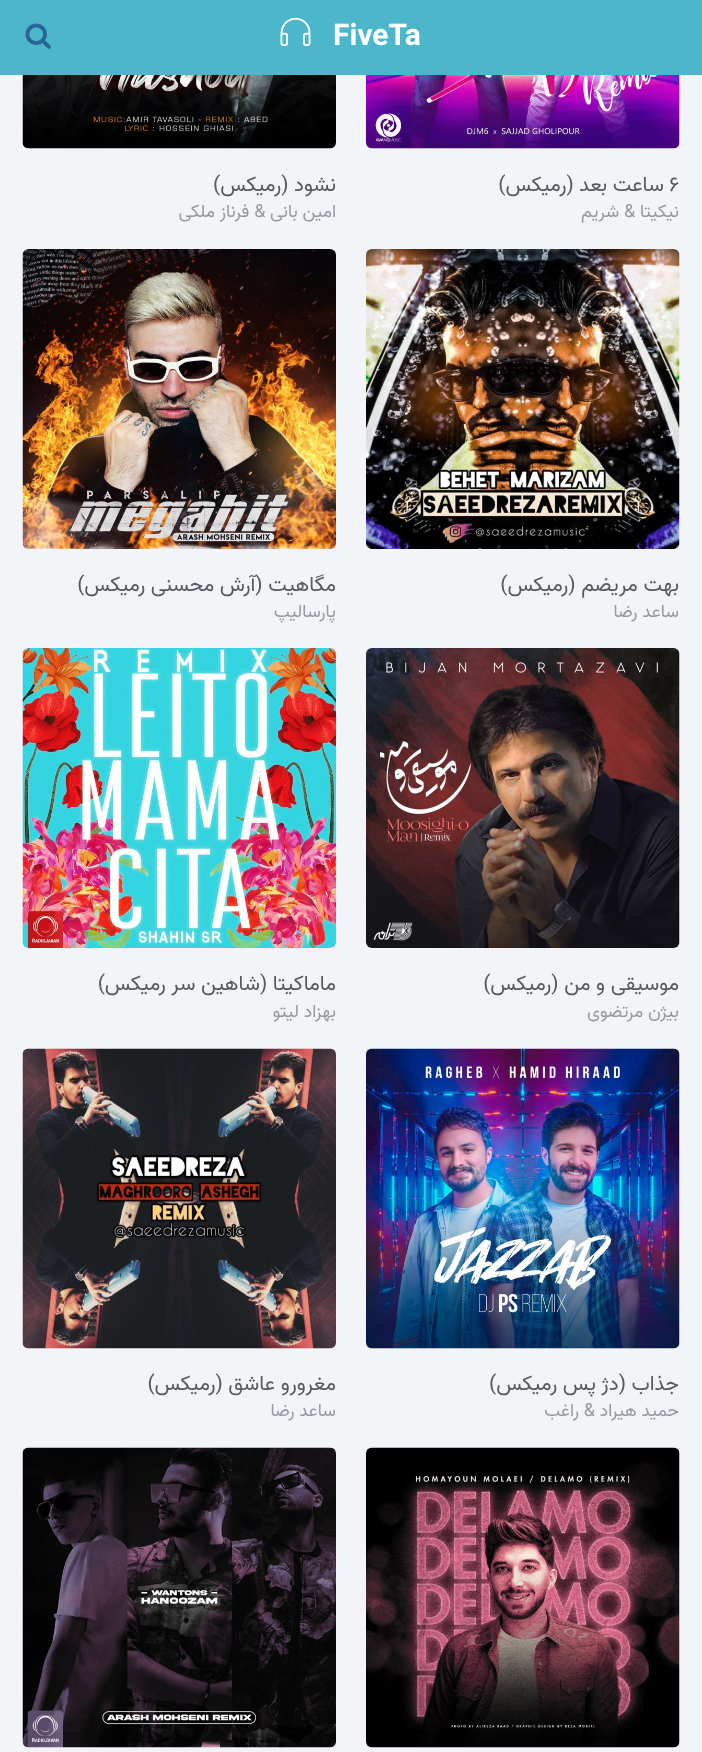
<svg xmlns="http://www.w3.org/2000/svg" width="702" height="1752">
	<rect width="100%" height="100%" fill="#F2F4F8" />
	<rect x="0" y="0" width="702" height="75" fill="#4CB6CB" />
	<text x="333" y="45" font-family="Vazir" font-size="30" font-weight="700" fill="#FFFFFF">FiveTa</text>
	<image x="280" y="17" width="31" height="29" href="assets/img1.png" />
	<image x="25" y="23" width="26" height="26" href="assets/img2.png" />
	<image x="366" y="75" width="314" height="74" href="assets/img3.png" />
	<text x="669" y="191" font-family="Vazir" font-size="21" fill="#545A5F">۶</text>
	<text x="664" y="191" font-family="Vazir" font-size="21" direction="rtl" fill="#545A5F">ساعت بعد (رمیکس)</text>
	<text x="679" y="217" font-family="Vazir" font-size="18" direction="rtl" fill="#939AA0">نیکیتا &amp; شریم</text>
	<image x="22" y="75" width="314" height="74" href="assets/img4.png" />
	<text x="336" y="191" font-family="Vazir" font-size="21" direction="rtl" fill="#545A5F">نشود (رمیکس)</text>
	<text x="336" y="217" font-family="Vazir" font-size="18" direction="rtl" fill="#939AA0">امین بانی &amp; فرناز ملکی</text>
	<image x="366" y="249" width="314" height="300" href="assets/img5.png" />
	<text x="679" y="591" font-family="Vazir" font-size="21" direction="rtl" fill="#545A5F">بهت مریضم (رمیکس)</text>
	<text x="679" y="617" font-family="Vazir" font-size="18" direction="rtl" fill="#939AA0">ساعد رضا</text>
	<image x="22" y="249" width="314" height="300" href="assets/img6.png" />
	<text x="336" y="591" font-family="Vazir" font-size="21" direction="rtl" fill="#545A5F">مگاهیت (آرش محسنی رمیکس)</text>
	<text x="336" y="617" font-family="Vazir" font-size="18" direction="rtl" fill="#939AA0">پارسالیپ</text>
	<image x="366" y="648" width="314" height="300" href="assets/img7.png" />
	<text x="679" y="990" font-family="Vazir" font-size="21" direction="rtl" fill="#545A5F">موسیقی و من (رمیکس)</text>
	<text x="679" y="1017" font-family="Vazir" font-size="18" direction="rtl" fill="#939AA0">بیژن مرتضوی</text>
	<image x="22" y="648" width="314" height="300" href="assets/img8.png" />
	<text x="336" y="990" font-family="Vazir" font-size="21" direction="rtl" fill="#545A5F">ماماکیتا (شاهین سر رمیکس)</text>
	<text x="336" y="1017" font-family="Vazir" font-size="18" direction="rtl" fill="#939AA0">بهزاد لیتو</text>
	<image x="366" y="1048" width="314" height="301" href="assets/img9.png" />
	<text x="679" y="1390" font-family="Vazir" font-size="21" direction="rtl" fill="#545A5F">جذاب (دژ پس رمیکس)</text>
	<text x="679" y="1416" font-family="Vazir" font-size="18" direction="rtl" fill="#939AA0">حمید هیراد &amp; راغب</text>
	<image x="22" y="1048" width="314" height="301" href="assets/img10.png" />
	<text x="336" y="1390" font-family="Vazir" font-size="21" direction="rtl" fill="#545A5F">مغرورو عاشق (رمیکس)</text>
	<text x="336" y="1416" font-family="Vazir" font-size="18" direction="rtl" fill="#939AA0">ساعد رضا</text>
	<image x="366" y="1447" width="314" height="301" href="assets/img11.png" />
	<image x="22" y="1447" width="314" height="301" href="assets/img12.png" />
</svg>
